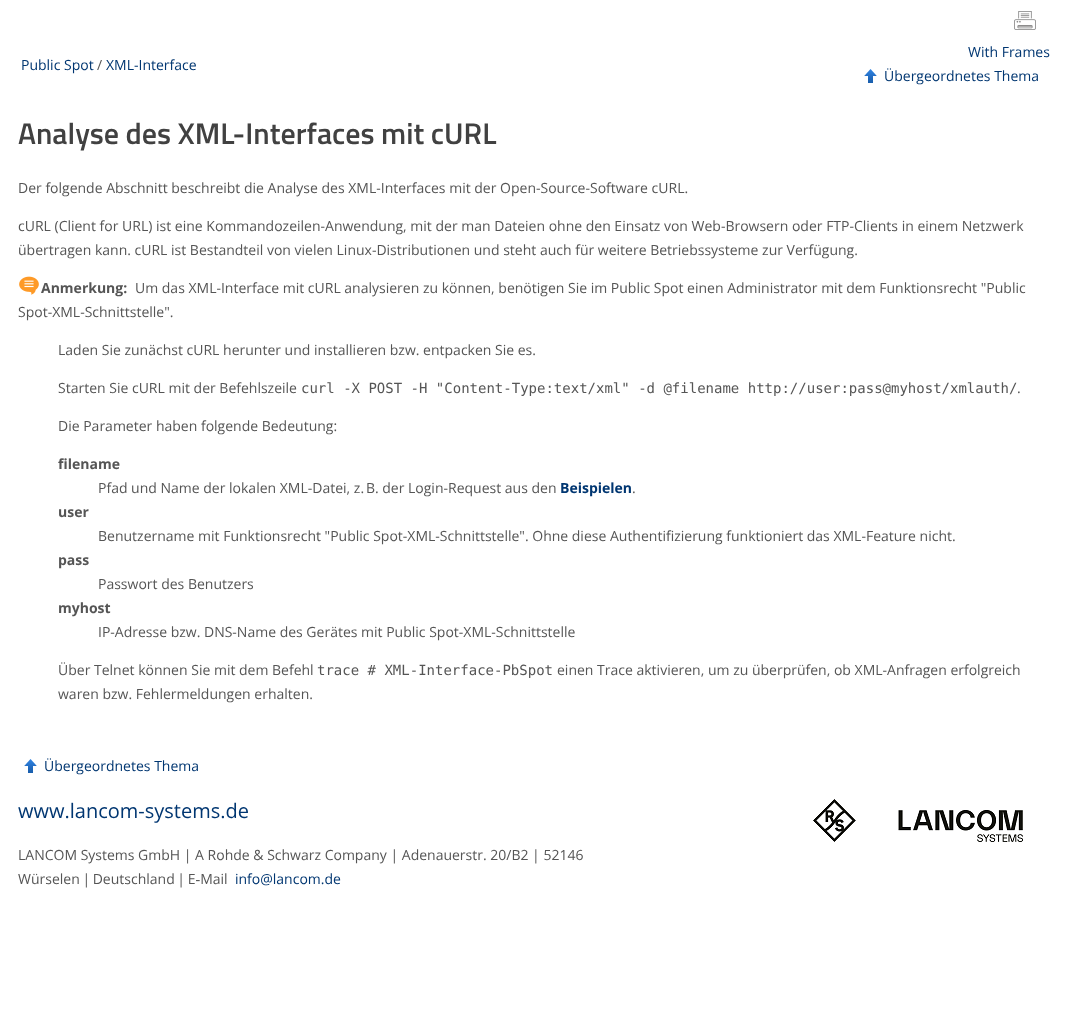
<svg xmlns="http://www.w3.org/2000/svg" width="1065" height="1013">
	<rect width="100%" height="100%" fill="#FFFFFF" />
	<image x="1014" y="11" width="22" height="19" href="assets/img1.png" />
	<text x="21" y="70" font-family="Open Sans" font-size="14" fill="#003671">Public Spot</text>
	<text x="97" y="70" font-family="Open Sans" font-size="14" fill="#555555">/</text>
	<g font-family="Open Sans" font-size="14" fill="#003671">
		<text x="106" y="70">XML-Interface</text>
		<text x="968" y="57">With Frames</text>
	</g>
	<image x="864" y="69" width="13" height="14" href="assets/img2.png" />
	<text x="884" y="81" font-family="Open Sans" font-size="14" fill="#003671">Übergeordnetes Thema</text>
	<text x="18" y="144" font-family="Titillium Web" font-size="30" font-weight="600" fill="#414141">Analyse des XML-Interfaces mit cURL</text>
	<g font-family="Open Sans" font-size="14" fill="#555555">
		<text x="18" y="193">Der folgende Abschnitt beschreibt die Analyse des XML-Interfaces mit der Open-Source-Software cURL.</text>
		<text x="18" y="231">cURL (Client for URL) ist eine Kommandozeilen-Anwendung, mit der man Dateien ohne den Einsatz von Web-Browsern oder FTP-Clients in einem Netzwerk</text>
		<text x="18" y="255">übertragen kann. cURL ist Bestandteil von vielen Linux-Distributionen und steht auch für weitere Betriebssysteme zur Verfügung.</text>
	</g>
	<image x="19" y="276" width="20" height="19" href="assets/img3.png" />
	<text x="41" y="293" font-family="Open Sans" font-size="14" font-weight="700" fill="#555555">Anmerkung:</text>
	<g font-family="Open Sans" font-size="14" fill="#555555">
		<text x="135" y="293">Um das XML-Interface mit cURL analysieren zu können, benötigen Sie im Public Spot einen Administrator mit dem Funktionsrecht "Public</text>
		<text x="18" y="317">Spot-XML-Schnittstelle".</text>
		<text x="58" y="355">Laden Sie zunächst cURL herunter und installieren bzw. entpacken Sie es.</text>
		<text x="58" y="393">Starten Sie cURL mit der Befehlszeile</text>
	</g>
	<text x="301" y="393" font-family="DejaVu Sans Mono" font-size="14" fill="#555555">curl -X POST -H "Content-Type:text/xml" -d @filename http://user:pass@myhost/xmlauth/</text>
	<g font-family="Open Sans" font-size="14" fill="#555555">
		<text x="1017" y="393">.</text>
		<text x="58" y="431">Die Parameter haben folgende Bedeutung:</text>
	</g>
	<text x="58" y="469" font-family="Open Sans" font-size="14" font-weight="700" fill="#555555">filename</text>
	<text x="98" y="493" font-family="Open Sans" font-size="14" fill="#555555">Pfad und Name der lokalen XML-Datei, z. B. der Login-Request aus den</text>
	<text x="560" y="493" font-family="Open Sans" font-size="14" font-weight="700" fill="#003671">Beispielen</text>
	<text x="632" y="493" font-family="Open Sans" font-size="14" fill="#555555">.</text>
	<text x="58" y="517" font-family="Open Sans" font-size="14" font-weight="700" fill="#555555">user</text>
	<text x="98" y="541" font-family="Open Sans" font-size="14" fill="#555555">Benutzername mit Funktionsrecht "Public Spot-XML-Schnittstelle". Ohne diese Authentifizierung funktioniert das XML-Feature nicht.</text>
	<text x="58" y="565" font-family="Open Sans" font-size="14" font-weight="700" fill="#555555">pass</text>
	<text x="98" y="589" font-family="Open Sans" font-size="14" fill="#555555">Passwort des Benutzers</text>
	<text x="58" y="613" font-family="Open Sans" font-size="14" font-weight="700" fill="#555555">myhost</text>
	<g font-family="Open Sans" font-size="14" fill="#555555">
		<text x="98" y="637">IP-Adresse bzw. DNS-Name des Gerätes mit Public Spot-XML-Schnittstelle</text>
		<text x="58" y="675">Über Telnet können Sie mit dem Befehl</text>
	</g>
	<text x="317" y="675" font-family="DejaVu Sans Mono" font-size="14" fill="#555555">trace # XML-Interface-PbSpot</text>
	<g font-family="Open Sans" font-size="14" fill="#555555">
		<text x="557" y="675">einen Trace aktivieren, um zu überprüfen, ob XML-Anfragen erfolgreich</text>
		<text x="58" y="699">waren bzw. Fehlermeldungen erhalten.</text>
	</g>
	<image x="24" y="759" width="13" height="14" href="assets/img2.png" />
	<text x="44" y="771" font-family="Open Sans" font-size="14" fill="#003671">Übergeordnetes Thema</text>
	<text x="18" y="818" font-family="Open Sans" font-size="20" fill="#003671">www.lancom-systems.de</text>
	<g font-family="Open Sans" font-size="14" fill="#555555">
		<text x="18" y="860">LANCOM Systems GmbH | A Rohde &amp; Schwarz Company | Adenauerstr. 20/B2 | 52146</text>
		<text x="18" y="884" word-spacing="-1">Würselen | Deutschland | E‑Mail</text>
	</g>
	<text x="235" y="884" font-family="Open Sans" font-size="14" fill="#003671">info@lancom.de</text>
	<image x="813" y="799" width="210" height="43" href="assets/img4.png" />
</svg>
